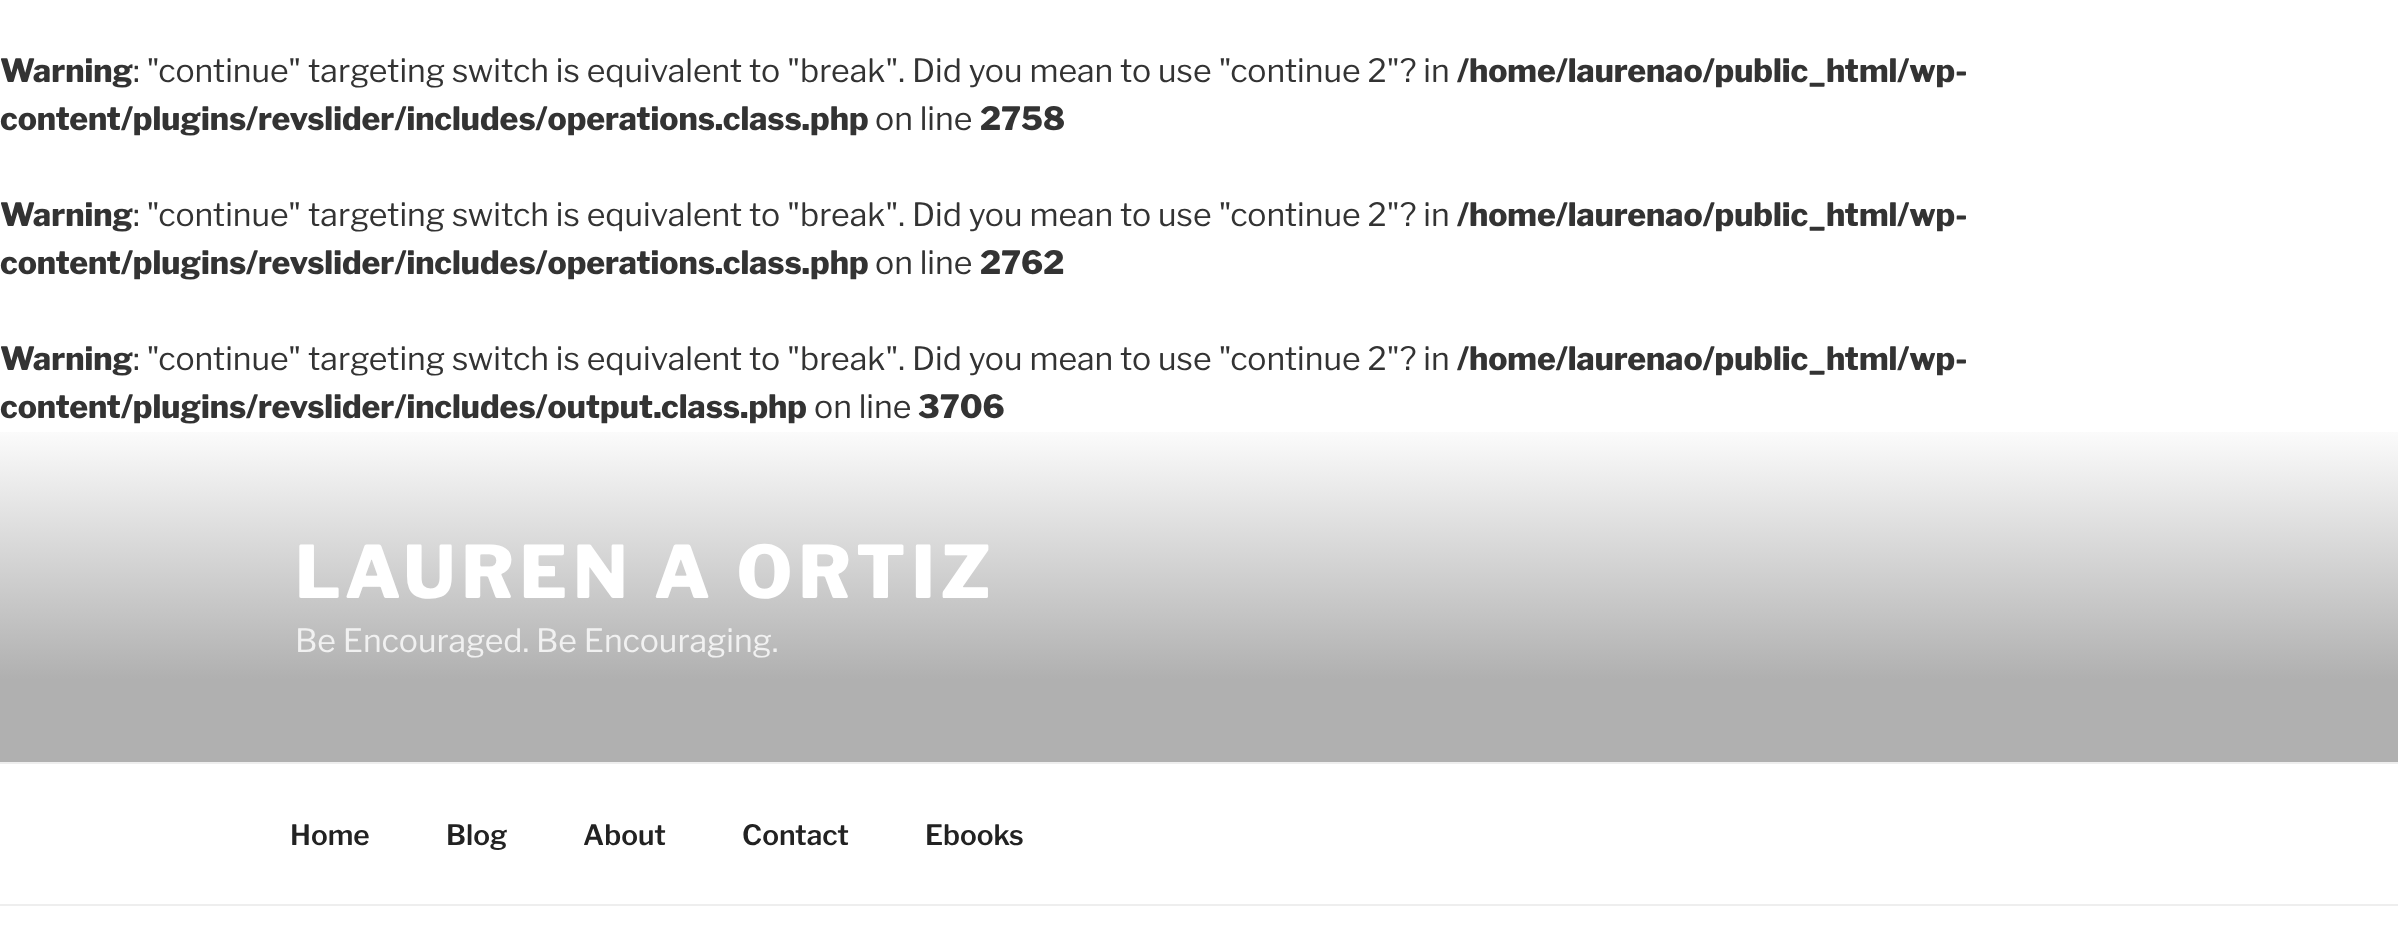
<svg xmlns="http://www.w3.org/2000/svg" width="2398" height="947">
	<defs>
		<linearGradient id="g1" gradientUnits="userSpaceOnUse" x1="1199" y1="432" x2="1199" y2="762"><stop offset="0" stop-color="#FBFBFB" /><stop offset="0.75" stop-color="#B0B0B0" /><stop offset="1" stop-color="#B0B0B0" /></linearGradient>
	</defs>
	<rect width="100%" height="100%" fill="#FFFFFF" />
	<text x="0" y="82" font-family="Libre Franklin" font-size="32" font-weight="800" fill="#333333">Warning</text>
	<text x="133" y="82" font-family="Libre Franklin" font-size="32" fill="#333333">: "continue" targeting switch is equivalent to "break". Did you mean to use "continue 2"? in</text>
	<g font-family="Libre Franklin" font-size="32" font-weight="800" fill="#333333">
		<text x="1457" y="82">/home/laurenao/public_html/wp-</text>
		<text x="0" y="130">content/plugins/revslider/includes/operations.class.php</text>
	</g>
	<text x="875" y="130" font-family="Libre Franklin" font-size="32" fill="#333333">on line</text>
	<g font-family="Libre Franklin" font-size="32" font-weight="800" fill="#333333">
		<text x="980" y="130">2758</text>
		<text x="0" y="226">Warning</text>
	</g>
	<text x="133" y="226" font-family="Libre Franklin" font-size="32" fill="#333333">: "continue" targeting switch is equivalent to "break". Did you mean to use "continue 2"? in</text>
	<g font-family="Libre Franklin" font-size="32" font-weight="800" fill="#333333">
		<text x="1457" y="226">/home/laurenao/public_html/wp-</text>
		<text x="0" y="274">content/plugins/revslider/includes/operations.class.php</text>
	</g>
	<text x="875" y="274" font-family="Libre Franklin" font-size="32" fill="#333333">on line</text>
	<g font-family="Libre Franklin" font-size="32" font-weight="800" fill="#333333">
		<text x="980" y="274">2762</text>
		<text x="0" y="370">Warning</text>
	</g>
	<text x="133" y="370" font-family="Libre Franklin" font-size="32" fill="#333333">: "continue" targeting switch is equivalent to "break". Did you mean to use "continue 2"? in</text>
	<g font-family="Libre Franklin" font-size="32" font-weight="800" fill="#333333">
		<text x="1457" y="370">/home/laurenao/public_html/wp-</text>
		<text x="0" y="418">content/plugins/revslider/includes/output.class.php</text>
	</g>
	<text x="814" y="418" font-family="Libre Franklin" font-size="32" fill="#333333">on line</text>
	<text x="918" y="418" font-family="Libre Franklin" font-size="32" font-weight="800" fill="#333333">3706</text>
	<rect x="0" y="432" width="2398" height="330" fill="url(#g1)" />
	<text x="295" y="598" font-family="Libre Franklin" font-size="72" font-weight="800" letter-spacing="5.75" fill="#FFFFFF">LAUREN A ORTIZ</text>
	<text x="295" y="652" font-family="Libre Franklin" font-size="32" fill="#F1F1F1">Be Encouraged. Be Encouraging.</text>
	<rect x="0" y="762" width="2398" height="2" fill="#EEEEEE" />
	<rect x="0" y="904" width="2398" height="2" fill="#EEEEEE" />
	<g font-family="Libre Franklin" font-size="28" font-weight="600" fill="#222222">
		<text x="290" y="845">Home</text>
		<text x="446" y="845">Blog</text>
		<text x="583" y="845">About</text>
		<text x="742" y="845">Contact</text>
		<text x="925" y="845">Ebooks</text>
	</g>
</svg>
